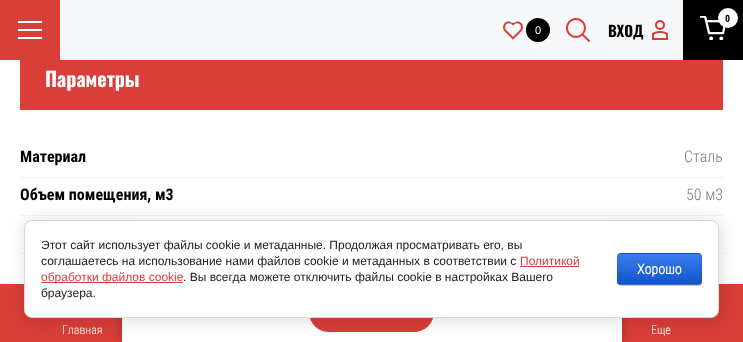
<svg xmlns="http://www.w3.org/2000/svg" width="743" height="342">
	<defs>
		<clipPath id="clip1"><rect x="617" y="253" width="85" height="32" rx="4" /></clipPath>
		<linearGradient id="g1" gradientUnits="userSpaceOnUse" x1="660" y1="224" x2="660" y2="254"><stop offset="0" stop-color="#3B7CEF" /><stop offset="1" stop-color="#1155CC" /></linearGradient>
		<linearGradient id="g2" gradientUnits="userSpaceOnUse" x1="660" y1="254" x2="660" y2="284"><stop offset="0" stop-color="#3B7CEF" /><stop offset="1" stop-color="#1155CC" /></linearGradient>
		<linearGradient id="g3" gradientUnits="userSpaceOnUse" x1="660" y1="284" x2="660" y2="314"><stop offset="0" stop-color="#3B7CEF" /><stop offset="1" stop-color="#1155CC" /></linearGradient>
	</defs>
	<rect width="100%" height="100%" fill="#FFFFFF" />
	<rect x="60" y="0" width="623" height="60" fill="#F6F8F9" />
	<rect x="0" y="0" width="60" height="60" fill="#D93E38" />
	<image x="18" y="21" width="24" height="18" href="assets/img1.png" />
	<rect x="683" y="0" width="60" height="60" fill="#000000" />
	<image x="700" y="16" width="26" height="24" href="assets/img2.png" />
	<circle cx="728" cy="18" r="10" fill="#FFFFFF" />
	<text x="725" y="22" font-family="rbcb" font-size="10" font-weight="700" fill="#000000">0</text>
	<image x="503" y="21" width="20" height="19" href="assets/img3.png" />
	<circle cx="538" cy="30" r="12" fill="#000000" />
	<text x="535" y="34" font-family="Liberation Sans" font-size="11" fill="#FFFFFF">0</text>
	<image x="566" y="18" width="24" height="24" href="assets/img4.png" />
	<text x="608" y="37" font-family="Oswald" font-size="15" font-weight="700" fill="#000000">ВХОД</text>
	<image x="652" y="20" width="16" height="20" href="assets/img5.png" />
	<rect x="20" y="60" width="703" height="50" fill="#D93E38" />
	<text x="45" y="87" font-family="Oswald" font-size="20" font-weight="700" fill="#FFFFFF">Параметры</text>
	<rect x="20" y="177" width="703" height="1" fill="#F2F2F2" />
	<text x="20" y="162" font-family="rbcb" font-size="16" font-weight="700" fill="#000000">Материал</text>
	<text x="684" y="162" font-family="Roboto Condensed" font-size="16" font-weight="300" fill="#7B7B7B">Сталь</text>
	<rect x="20" y="215" width="703" height="1" fill="#F2F2F2" />
	<text x="20" y="200" font-family="rbcb" font-size="16" font-weight="700" fill="#000000">Объем помещения, м3</text>
	<text x="686" y="200" font-family="Roboto Condensed" font-size="16" font-weight="300" fill="#7B7B7B">50 м3</text>
	<rect x="20" y="253" width="703" height="1" fill="#F2F2F2" />
	<rect x="0" y="284" width="743" height="58" fill="#D93E38" />
	<rect x="122" y="228" width="500" height="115" fill="#000000" fill-opacity="0.23" filter="blur(5px)" />
	<rect x="122" y="318" width="500" height="24" fill="#FFFFFF" />
	<rect x="309" y="292" width="125" height="40" rx="20" fill="#D93E38" />
	<rect x="26" y="222" width="695" height="98" rx="8" fill="#000000" fill-opacity="0.14" filter="blur(9px)" />
	<rect x="24.5" y="220.5" width="694" height="97" rx="7.5" fill="#FFFFFF" stroke="#D6D6D6" />
	<g font-family="Liberation Sans" font-size="12" fill="#212121">
		<text x="41" y="249">Этот сайт использует файлы cookie и метаданные. Продолжая просматривать его, вы</text>
		<text x="41" y="265">соглашаетесь на использование нами файлов cookie и метаданных в соответствии с</text>
	</g>
	<text x="520" y="265" font-family="Liberation Sans" font-size="12" fill="#D93E38">Политикой</text>
	<rect x="520" y="266" width="59" height="1" fill="#D93E38" />
	<rect x="41" y="282" width="142" height="1" fill="#D93E38" />
	<text x="41" y="281" font-family="Liberation Sans" font-size="12" fill="#D93E38">обработки файлов cookie</text>
	<g font-family="Liberation Sans" font-size="12" fill="#212121">
		<text x="183" y="281">. Вы всегда можете отключить файлы cookie в настройках Вашего</text>
		<text x="41" y="297">браузера.</text>
	</g>
	<rect x="617" y="254" width="85" height="32" rx="4" fill="#000000" fill-opacity="0.2" filter="blur(0.5px)" />
	<g clip-path="url(#clip1)">
		<rect x="617" y="253" width="85" height="1" fill="url(#g1)" />
		<rect x="617" y="254" width="85" height="30" fill="url(#g2)" />
		<rect x="617" y="284" width="85" height="1" fill="url(#g3)" />
	</g>
	<rect x="617.5" y="253.5" width="84" height="31" rx="3.5" fill="none" stroke="#000000" stroke-opacity="0.1" />
	<text x="637" y="274" font-family="Roboto Condensed" font-size="14" font-weight="700" fill="#FFFFFF">Хорошо</text>
	<g font-family="Roboto Condensed" font-size="12" font-weight="300" fill="#FFFFFF">
		<text x="62" y="334">Главная</text>
		<text x="651" y="334">Еще</text>
	</g>
</svg>
